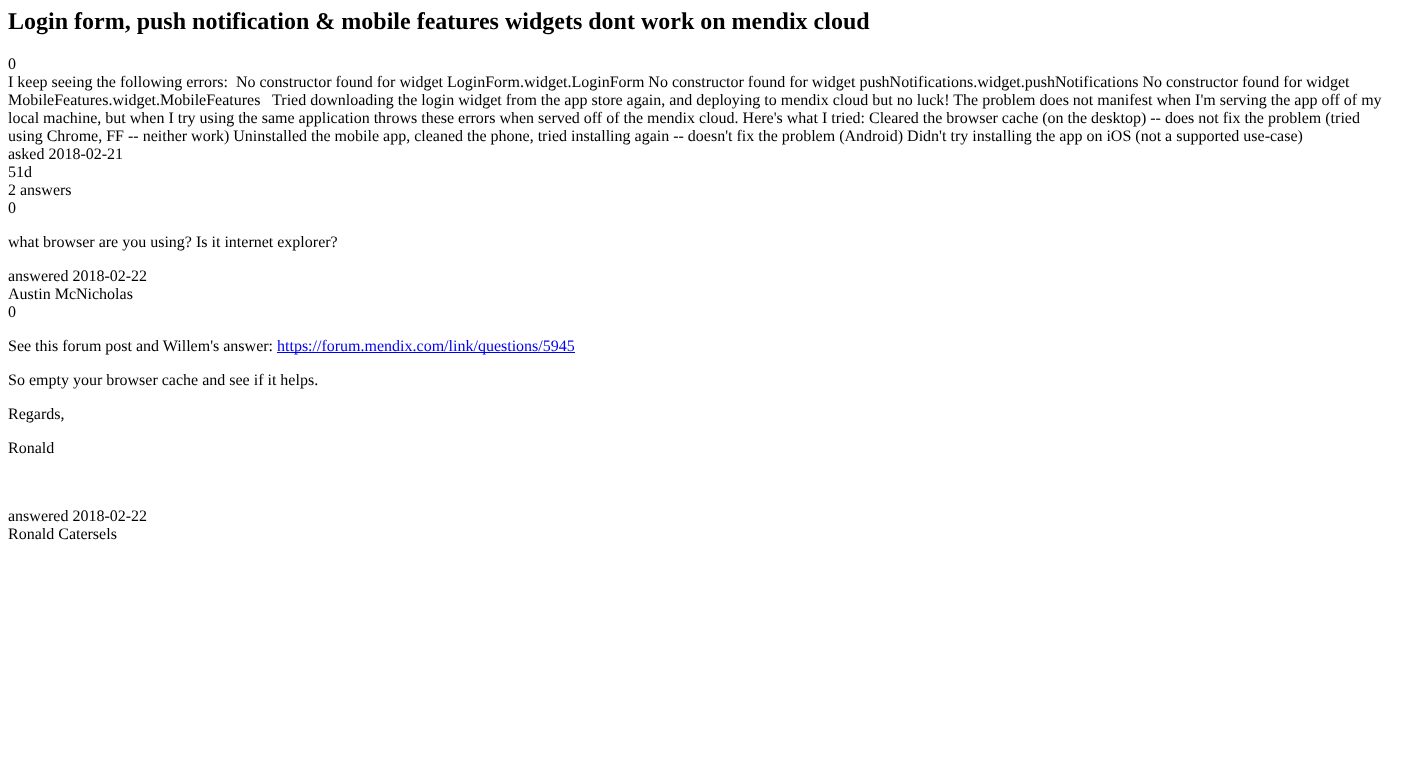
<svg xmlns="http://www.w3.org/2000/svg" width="1403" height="768">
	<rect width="100%" height="100%" fill="#FFFFFF" />
	<text x="8" y="29" font-family="Liberation Serif" font-size="24" font-weight="700" fill="#000000">Login form, push notification &amp; mobile features widgets dont work on mendix cloud</text>
	<g font-family="Liberation Serif" font-size="16" fill="#000000">
		<text x="8" y="69">0</text>
		<text x="8" y="87" xml:space="preserve">I keep seeing the following errors:  No constructor found for widget LoginForm.widget.LoginForm No constructor found for widget pushNotifications.widget.pushNotifications No constructor found for widget</text>
		<text x="8" y="105" xml:space="preserve">MobileFeatures.widget.MobileFeatures   Tried downloading the login widget from the app store again, and deploying to mendix cloud but no luck! The problem does not manifest when I'm serving the app off of my</text>
		<text x="8" y="123">local machine, but when I try using the same application throws these errors when served off of the mendix cloud. Here's what I tried: Cleared the browser cache (on the desktop) -- does not fix the problem (tried</text>
		<text x="8" y="141">using Chrome, FF -- neither work) Uninstalled the mobile app, cleaned the phone, tried installing again -- doesn't fix the problem (Android) Didn't try installing the app on iOS (not a supported use-case)</text>
		<text x="8" y="159">asked 2018-02-21</text>
		<text x="8" y="177">51d</text>
		<text x="8" y="195">2 answers</text>
		<text x="8" y="213">0</text>
		<text x="8" y="247">what browser are you using? Is it internet explorer?</text>
		<text x="8" y="281">answered 2018-02-22</text>
		<text x="8" y="299">Austin McNicholas</text>
		<text x="8" y="317">0</text>
		<text x="8" y="351">See this forum post and Willem's answer:</text>
	</g>
	<rect x="277" y="352" width="298" height="1" fill="#0000EE" />
	<text x="277" y="351" font-family="Liberation Serif" font-size="16" fill="#0000EE">https://forum.mendix.com/link/questions/5945</text>
	<g font-family="Liberation Serif" font-size="16" fill="#000000">
		<text x="8" y="385">So empty your browser cache and see if it helps.</text>
		<text x="8" y="419">Regards,</text>
		<text x="8" y="453">Ronald</text>
		<text x="8" y="521">answered 2018-02-22</text>
		<text x="8" y="539">Ronald Catersels</text>
	</g>
</svg>
